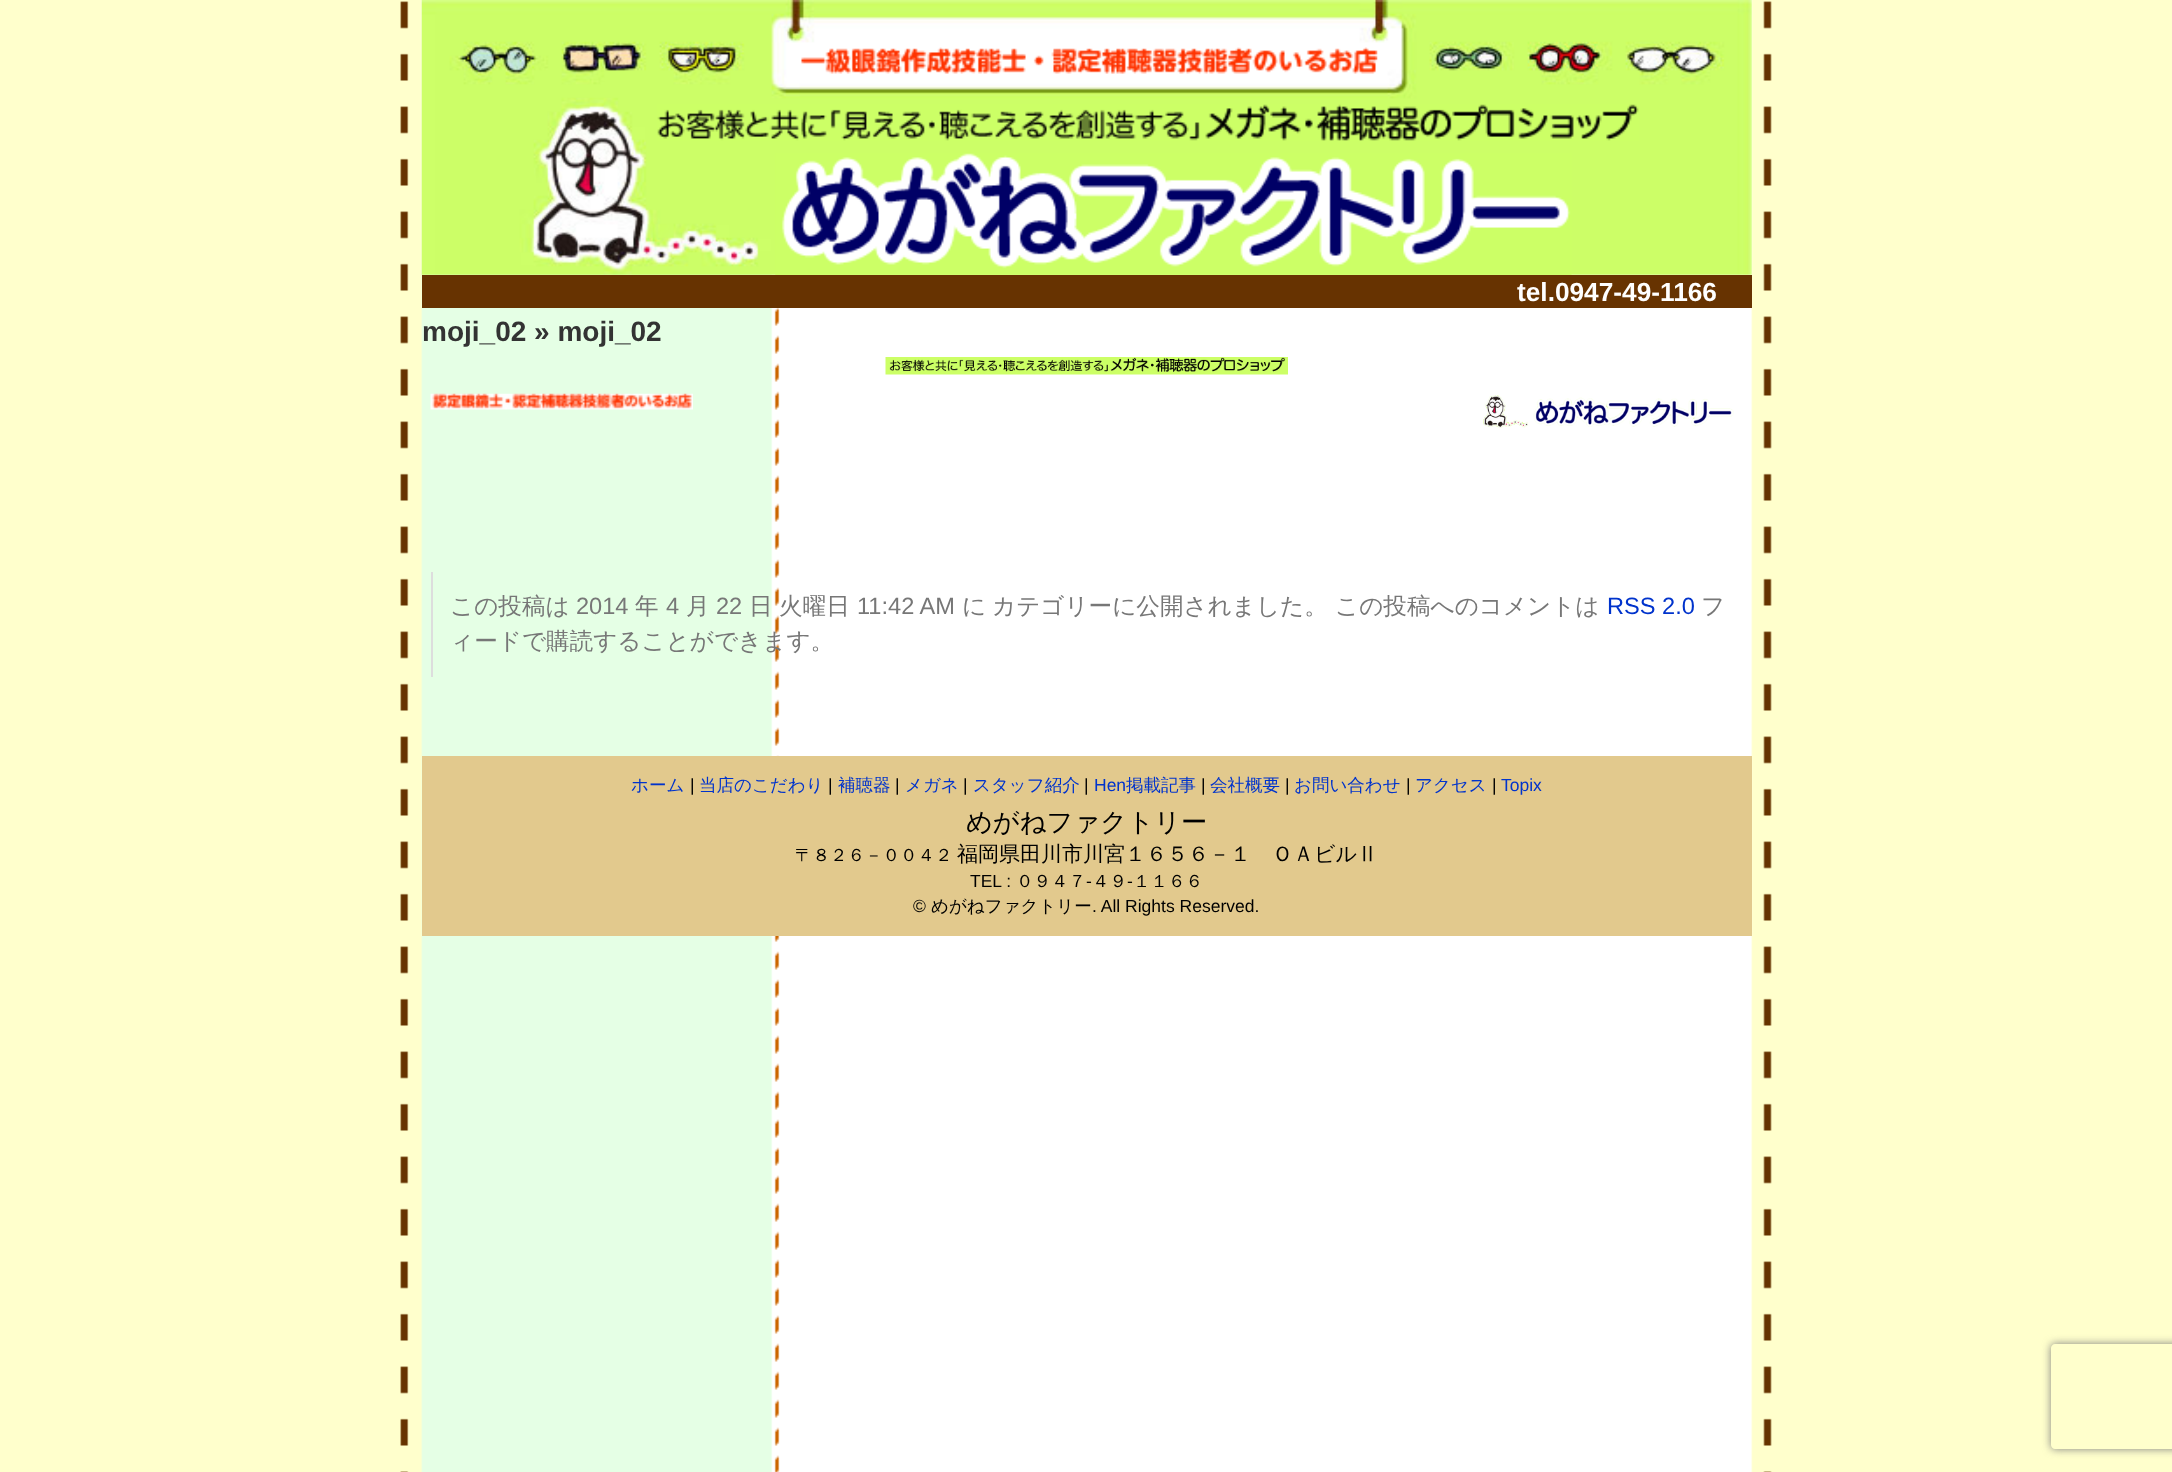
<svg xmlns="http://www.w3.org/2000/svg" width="2172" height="1472">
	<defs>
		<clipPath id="clip1"><path d="M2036 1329H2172V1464H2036ZM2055 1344H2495C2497 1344 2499 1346 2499 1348V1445C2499 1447 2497 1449 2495 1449H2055C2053 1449 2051 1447 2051 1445V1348C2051 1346 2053 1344 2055 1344Z" clip-rule="evenodd" /></clipPath>
	</defs>
	<rect width="100%" height="100%" fill="#FFFFFF" />
	<image x="0" y="0" width="2172" height="1472" href="assets/img1.png" />
	<image x="421" y="0" width="1331" height="275" href="assets/img2.png" />
	<image x="775" y="153" width="797" height="122" href="assets/img3.png" />
	<image x="801" y="47" width="577" height="27" href="assets/img4.png" />
	<image x="657" y="104" width="982" height="37" href="assets/img5.png" />
	<rect x="422" y="275" width="1330" height="33" fill="#673301" />
	<text x="1517" y="301" font-family="Liberation Sans" font-size="26.25" font-weight="700" fill="#FFFFFF">tel.0947-49-1166</text>
	<text x="422" y="341" font-family="Liberation Sans" font-size="28" font-weight="700" fill="#333333">moji_02 » moji_02</text>
	<image x="885" y="357" width="403" height="18" href="assets/img6.png" />
	<image x="430" y="393" width="263" height="17" href="assets/img7.png" />
	<image x="1483" y="395" width="251" height="33" href="assets/img8.png" />
	<rect x="431" y="572" width="2" height="105" fill="#DDDDDD" />
	<text x="450" y="614" font-family="WenQuanYi Zen Hei" font-size="23.6" font-weight="500" fill="#777777">この投稿は</text>
	<text x="576" y="614" font-family="Liberation Sans" font-size="23.6" fill="#777777">2014</text>
	<text x="635" y="614" font-family="WenQuanYi Zen Hei" font-size="23.6" font-weight="500" fill="#777777">年</text>
	<text x="666" y="614" font-family="Liberation Sans" font-size="23.6" fill="#777777">4</text>
	<text x="686" y="614" font-family="WenQuanYi Zen Hei" font-size="23.6" font-weight="500" fill="#777777">月</text>
	<text x="716" y="614" font-family="Liberation Sans" font-size="23.6" fill="#777777">22</text>
	<g font-family="WenQuanYi Zen Hei" font-size="23.6" font-weight="500" fill="#777777">
		<text x="749" y="614">日</text>
		<text x="779" y="614">火曜日</text>
	</g>
	<text x="857" y="614" font-family="Liberation Sans" font-size="23.6" fill="#777777">11:42 AM</text>
	<g font-family="WenQuanYi Zen Hei" font-size="23.6" font-weight="500" fill="#777777">
		<text x="962" y="614">に</text>
		<text x="992" y="614">カテゴリーに公開されました。</text>
		<text x="1335" y="614">この投稿へのコメントは</text>
	</g>
	<text x="1607" y="614" font-family="Liberation Sans" font-size="23.6" fill="#0033CC">RSS 2.0</text>
	<g font-family="WenQuanYi Zen Hei" font-size="23.6" font-weight="500" fill="#777777">
		<text x="1701" y="614">フ</text>
		<text x="450" y="649">ィードで購読することができます。</text>
	</g>
	<rect x="422" y="756" width="1330" height="180" fill="#E2C98D" />
	<text x="631" y="791" font-family="WenQuanYi Zen Hei" font-size="17.5" font-weight="500" fill="#0033CC">ホーム</text>
	<text x="690" y="791" font-family="Liberation Sans" font-size="17.5" fill="#000000">|</text>
	<text x="699" y="791" font-family="WenQuanYi Zen Hei" font-size="17.5" font-weight="500" fill="#0033CC">当店のこだわり</text>
	<text x="828" y="791" font-family="Liberation Sans" font-size="17.5" fill="#000000">|</text>
	<text x="838" y="791" font-family="WenQuanYi Zen Hei" font-size="17.5" font-weight="500" fill="#0033CC">補聴器</text>
	<text x="895" y="791" font-family="Liberation Sans" font-size="17.5" fill="#000000">|</text>
	<text x="905" y="791" font-family="WenQuanYi Zen Hei" font-size="17.5" font-weight="500" fill="#0033CC">メガネ</text>
	<text x="963" y="791" font-family="Liberation Sans" font-size="17.5" fill="#000000">|</text>
	<text x="973" y="791" font-family="WenQuanYi Zen Hei" font-size="17.5" font-weight="500" fill="#0033CC">スタッフ紹介</text>
	<text x="1084" y="791" font-family="Liberation Sans" font-size="17.5" fill="#000000">|</text>
	<text x="1094" y="791" font-family="Liberation Sans" font-size="17.5" fill="#0033CC">Hen</text>
	<text x="1126" y="791" font-family="WenQuanYi Zen Hei" font-size="17.5" font-weight="500" fill="#0033CC">掲載記事</text>
	<text x="1201" y="791" font-family="Liberation Sans" font-size="17.5" fill="#000000">|</text>
	<text x="1210" y="791" font-family="WenQuanYi Zen Hei" font-size="17.5" font-weight="500" fill="#0033CC">会社概要</text>
	<text x="1285" y="791" font-family="Liberation Sans" font-size="17.5" fill="#000000">|</text>
	<text x="1294" y="791" font-family="WenQuanYi Zen Hei" font-size="17.5" font-weight="500" fill="#0033CC">お問い合わせ</text>
	<text x="1406" y="791" font-family="Liberation Sans" font-size="17.5" fill="#000000">|</text>
	<text x="1415" y="791" font-family="WenQuanYi Zen Hei" font-size="17.5" font-weight="500" fill="#0033CC">アクセス</text>
	<text x="1492" y="791" font-family="Liberation Sans" font-size="17.5" fill="#000000">|</text>
	<text x="1501" y="791" font-family="Liberation Sans" font-size="17.5" fill="#0033CC">Topix</text>
	<text x="966" y="831" font-family="WenQuanYi Zen Hei" font-size="26.25" font-weight="500" fill="#000000">めがねファクトリー</text>
	<text x="795" y="861" font-family="WenQuanYi Zen Hei" font-size="17.5" font-weight="500" fill="#000000">〒８２６－００４２</text>
	<text x="957" y="861" font-family="WenQuanYi Zen Hei" font-size="21" font-weight="500" fill="#000000">福岡県田川市川宮１６５６－１　ＯＡビルⅡ</text>
	<text x="970" y="887" font-family="Liberation Sans" font-size="17.5" fill="#000000">TEL :</text>
	<text x="1016" y="887" font-family="WenQuanYi Zen Hei" font-size="17.5" font-weight="500" fill="#000000">０９４７</text>
	<text x="1086" y="887" font-family="Liberation Sans" font-size="17.5" fill="#000000">‐</text>
	<text x="1092" y="887" font-family="WenQuanYi Zen Hei" font-size="17.5" font-weight="500" fill="#000000">４９</text>
	<text x="1127" y="887" font-family="Liberation Sans" font-size="17.5" fill="#000000">‐</text>
	<text x="1133" y="887" font-family="WenQuanYi Zen Hei" font-size="17.5" font-weight="500" fill="#000000">１１６６</text>
	<text x="913" y="912" font-family="Liberation Sans" font-size="17.5" fill="#000000">©</text>
	<text x="931" y="912" font-family="WenQuanYi Zen Hei" font-size="17.5" font-weight="500" fill="#000000">めがねファクトリー</text>
	<text x="1092" y="912" font-family="Liberation Sans" font-size="17.5" fill="#000000">. All Rights Reserved.</text>
	<g clip-path="url(#clip1)">
		<rect x="2051" y="1344" width="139" height="105" rx="4" fill="#808080" filter="blur(4.5px)" />
	</g>
</svg>
